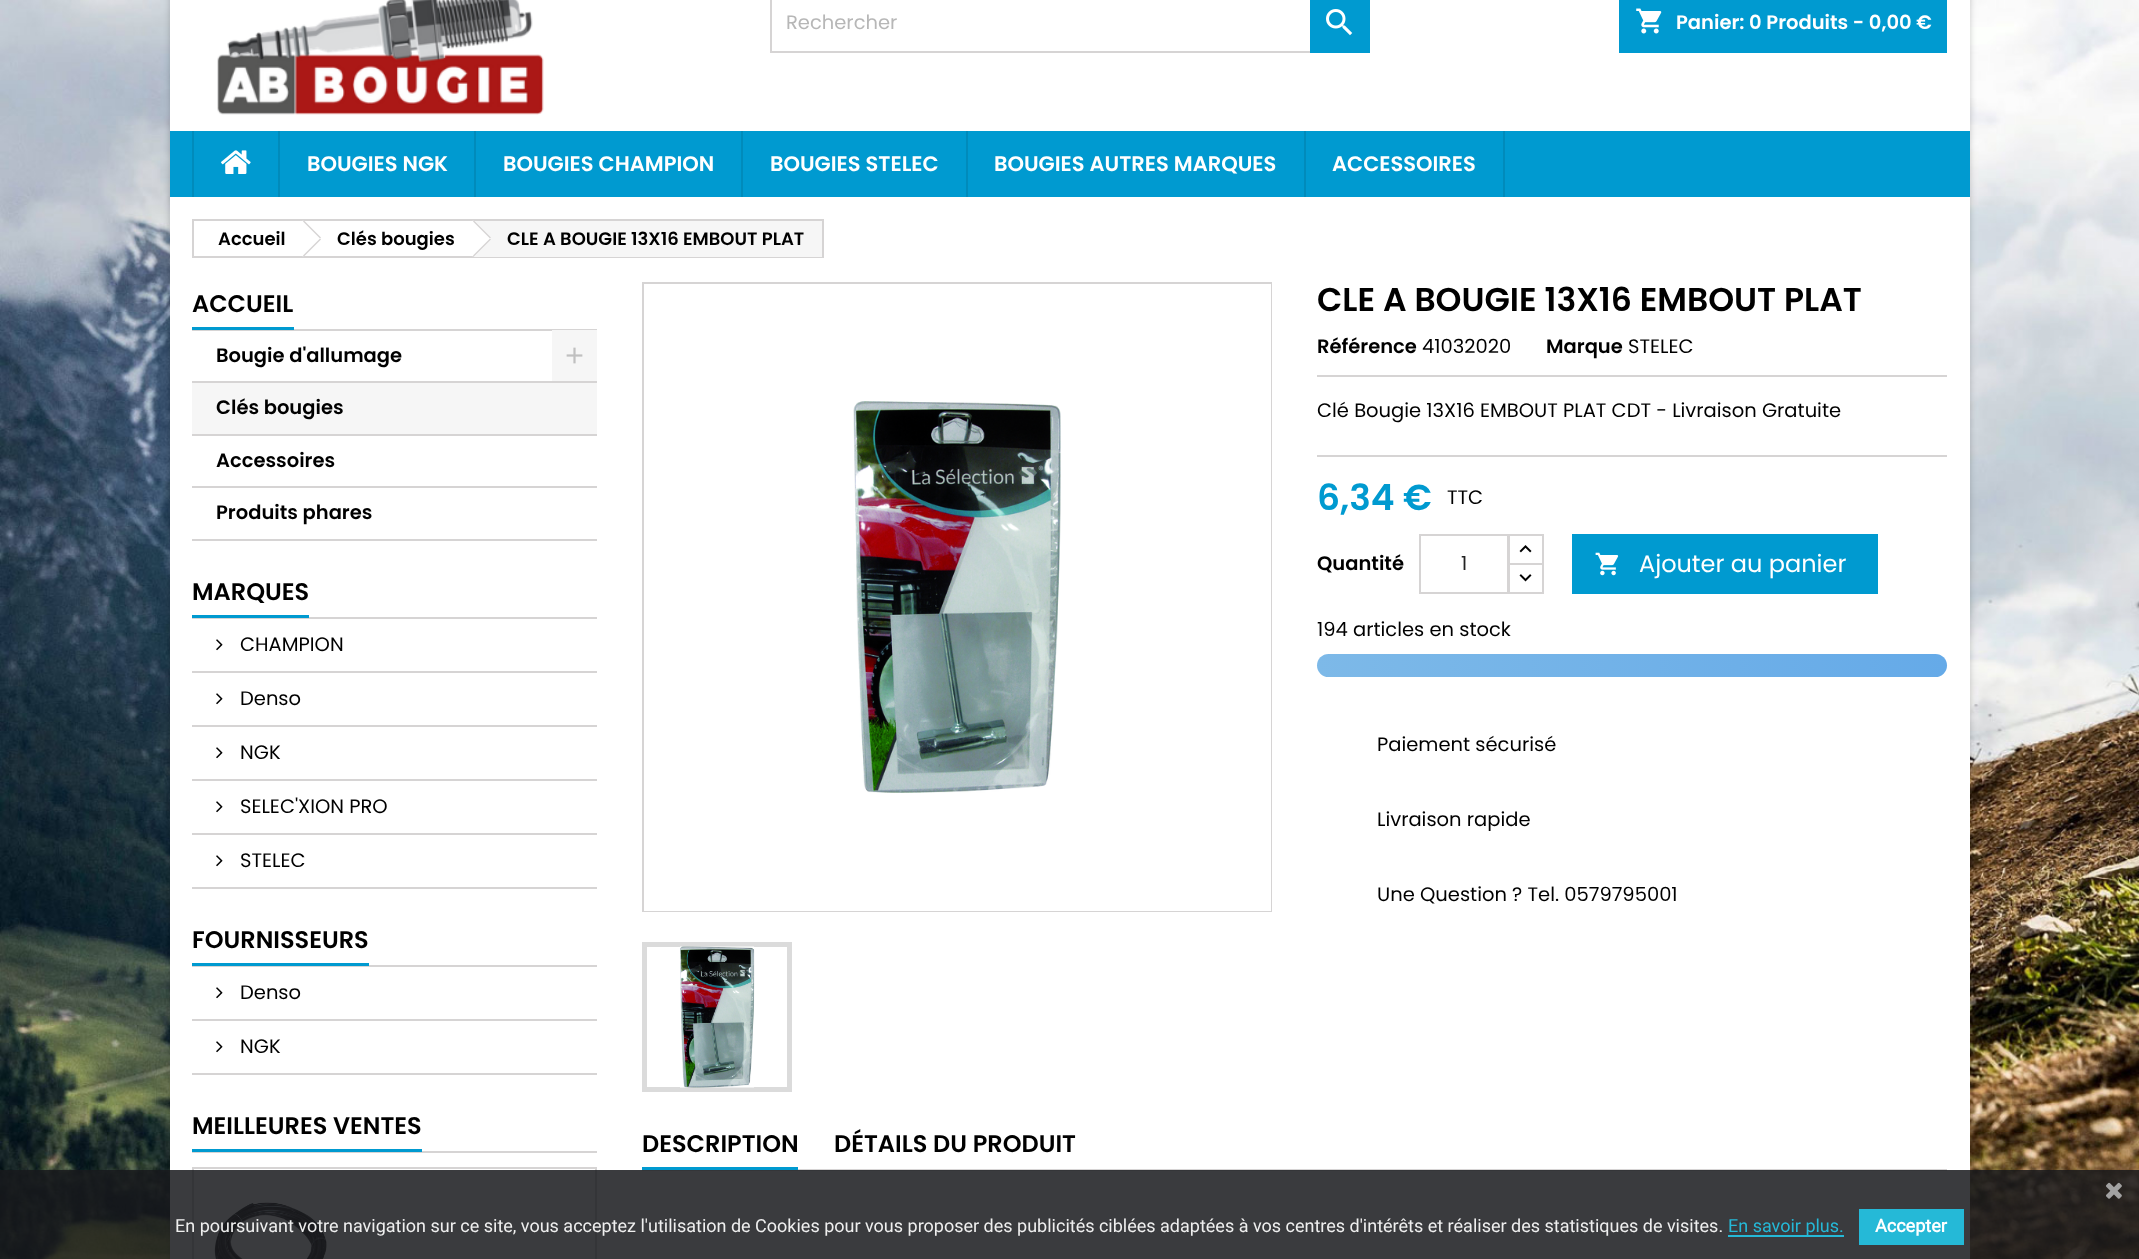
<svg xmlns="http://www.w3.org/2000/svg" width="2139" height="1259">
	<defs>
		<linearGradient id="g1" gradientUnits="userSpaceOnUse" x1="1317" y1="665" x2="1947" y2="665"><stop offset="0" stop-color="#7DB9E8" /><stop offset="1" stop-color="#65AAE8" /></linearGradient>
	</defs>
	<rect width="100%" height="100%" fill="#FFFFFF" />
	<image x="0" y="0" width="2139" height="1259" href="assets/img1.png" />
	<rect x="170" y="-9" width="1800" height="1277" fill="#000000" fill-opacity="0.2" filter="blur(3px)" />
	<rect x="170" y="0" width="1800" height="1259" fill="#FFFFFF" />
	<image x="217" y="0" width="327" height="115" href="assets/img2.png" />
	<rect x="771" y="-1" width="598" height="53" fill="none" stroke="#D6D4D4" stroke-width="2" />
	<text x="786" y="29" font-family="Poppins" font-size="19.5" fill="#B7B7B7">Rechercher</text>
	<rect x="1310" y="0" width="60" height="53" fill="#009AD0" />
	<image x="1326" y="9" width="27" height="27" href="assets/img3.png" />
	<rect x="1619" y="0" width="328" height="53" fill="#009AD0" />
	<image x="1636" y="8" width="26" height="26" href="assets/img4.png" />
	<text x="1676" y="29" font-family="Poppins" font-size="19.5" font-weight="600" fill="#FFFFFF">Panier: 0 Produits - 0,00 €</text>
	<rect x="170" y="131" width="1800" height="66" fill="#009AD0" />
	<rect x="192" y="131" width="2" height="66" fill="#008BBB" />
	<image x="221" y="150" width="30" height="24" href="assets/img5.png" />
	<rect x="278" y="131" width="2" height="66" fill="#008BBB" />
	<text x="307" y="171" font-family="Poppins" font-size="21" font-weight="600" fill="#FFFFFF">BOUGIES NGK</text>
	<rect x="474" y="131" width="2" height="66" fill="#008BBB" />
	<text x="503" y="171" font-family="Poppins" font-size="21" font-weight="600" fill="#FFFFFF">BOUGIES CHAMPION</text>
	<rect x="741" y="131" width="2" height="66" fill="#008BBB" />
	<text x="770" y="171" font-family="Poppins" font-size="21" font-weight="600" fill="#FFFFFF">BOUGIES STELEC</text>
	<rect x="966" y="131" width="2" height="66" fill="#008BBB" />
	<text x="994" y="171" font-family="Poppins" font-size="21" font-weight="600" fill="#FFFFFF">BOUGIES AUTRES MARQUES</text>
	<rect x="1503" y="131" width="2" height="66" fill="#008BBB" />
	<rect x="1304" y="131" width="2" height="66" fill="#008BBB" />
	<text x="1332" y="171" font-family="Poppins" font-size="21" font-weight="600" fill="#FFFFFF">ACCESSOIRES</text>
	<rect x="193" y="220" width="630" height="37" fill="none" stroke="#D6D4D4" stroke-width="2" />
	<text x="218" y="245" font-family="Poppins" font-size="18" font-weight="600" fill="#000000">Accueil</text>
	<path d="M305 221.5L320 236.5C321 237.5 321 239.5 320 240.5L305 255.5C304 256.5 302 256.5 301 255.5L286 240.5C285 239.5 285 237.5 286 236.5L301 221.5C302 220.5 304 220.5 305 221.5Z" fill="#FFFFFF" />
	<path d="M304 220.5L321 237.5L320 238.5L303 221.5Z" fill="#D6D4D4" />
	<path d="M320 238.5L321 239.5L304 256.5L303 255.5Z" fill="#D6D4D4" />
	<text x="337" y="245" font-family="Poppins" font-size="18" font-weight="600" fill="#000000">Clés bougies</text>
	<rect x="474" y="221" width="348" height="36" fill="#F6F6F6" />
	<path d="M475.5 221.5L490 236.5C491.5 237.5 491.5 239.5 490 240.5L475.5 255.5C474 256.5 472 256.5 471 255.5L456 240.5C455 239.5 455 237.5 456 236.5L471 221.5C472 220.5 474 220.5 475.5 221.5Z" fill="#FFFFFF" />
	<path d="M474 220.5L491 237.5L490 238.5L473 221.5Z" fill="#D6D4D4" />
	<path d="M490 238.5L491 239.5L474 256.5L473 255.5Z" fill="#D6D4D4" />
	<text x="507" y="245" font-family="Poppins" font-size="18" font-weight="600" fill="#000000">CLE A BOUGIE 13X16 EMBOUT PLAT</text>
	<rect x="192" y="329" width="405" height="2" fill="#D6D4D4" />
	<rect x="192" y="327" width="102" height="3" fill="#009AD0" />
	<text x="192" y="312" font-family="Poppins" font-size="24" font-weight="600" fill="#000000">ACCUEIL</text>
	<rect x="192" y="381" width="405" height="2" fill="#D6D4D4" />
	<text x="216" y="362" font-family="Poppins" font-size="19.5" font-weight="600" fill="#000000">Bougie d'allumage</text>
	<rect x="552" y="330" width="45" height="51" fill="#F6F6F6" />
	<image x="566" y="347" width="17" height="17" href="assets/img6.png" />
	<rect x="192" y="383" width="405" height="51" fill="#F6F6F6" />
	<rect x="192" y="434" width="405" height="2" fill="#D6D4D4" />
	<text x="216" y="414" font-family="Poppins" font-size="19.5" font-weight="600" fill="#000000">Clés bougies</text>
	<rect x="192" y="486" width="405" height="2" fill="#D6D4D4" />
	<text x="216" y="467" font-family="Poppins" font-size="19.5" font-weight="600" fill="#000000">Accessoires</text>
	<rect x="192" y="539" width="405" height="2" fill="#D6D4D4" />
	<text x="216" y="519" font-family="Poppins" font-size="19.5" font-weight="600" fill="#000000">Produits phares</text>
	<rect x="192" y="617" width="405" height="2" fill="#D6D4D4" />
	<rect x="192" y="615" width="117" height="3" fill="#009AD0" />
	<text x="192" y="600" font-family="Poppins" font-size="24" font-weight="600" fill="#000000">MARQUES</text>
	<rect x="192" y="671" width="405" height="2" fill="#D6D4D4" />
	<image x="216" y="639" width="7" height="12" href="assets/img7.png" />
	<text x="240" y="651" font-family="Poppins" font-size="19.5" fill="#000000">CHAMPION</text>
	<rect x="192" y="725" width="405" height="2" fill="#D6D4D4" />
	<image x="216" y="693" width="7" height="12" href="assets/img7.png" />
	<text x="240" y="705" font-family="Poppins" font-size="19.5" fill="#000000">Denso</text>
	<rect x="192" y="779" width="405" height="2" fill="#D6D4D4" />
	<image x="216" y="747" width="7" height="12" href="assets/img7.png" />
	<text x="240" y="759" font-family="Poppins" font-size="19.5" fill="#000000">NGK</text>
	<rect x="192" y="833" width="405" height="2" fill="#D6D4D4" />
	<image x="216" y="801" width="7" height="12" href="assets/img7.png" />
	<text x="240" y="813" font-family="Poppins" font-size="19.5" fill="#000000">SELEC'XION PRO</text>
	<rect x="192" y="887" width="405" height="2" fill="#D6D4D4" />
	<image x="216" y="855" width="7" height="12" href="assets/img7.png" />
	<text x="240" y="867" font-family="Poppins" font-size="19.5" fill="#000000">STELEC</text>
	<rect x="192" y="965" width="405" height="2" fill="#D6D4D4" />
	<rect x="192" y="963" width="177" height="3" fill="#009AD0" />
	<text x="192" y="948" font-family="Poppins" font-size="24" font-weight="600" fill="#000000">FOURNISSEURS</text>
	<rect x="192" y="1019" width="405" height="2" fill="#D6D4D4" />
	<image x="216" y="987" width="7" height="12" href="assets/img7.png" />
	<text x="240" y="999" font-family="Poppins" font-size="19.5" fill="#000000">Denso</text>
	<rect x="192" y="1073" width="405" height="2" fill="#D6D4D4" />
	<image x="216" y="1041" width="7" height="12" href="assets/img7.png" />
	<text x="240" y="1053" font-family="Poppins" font-size="19.5" fill="#000000">NGK</text>
	<rect x="192" y="1151" width="405" height="2" fill="#D6D4D4" />
	<rect x="192" y="1149" width="230" height="3" fill="#009AD0" />
	<text x="192" y="1134" font-family="Poppins" font-size="24" font-weight="600" fill="#000000">MEILLEURES VENTES</text>
	<rect x="193" y="1168" width="403" height="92" fill="none" stroke="#D6D4D4" stroke-width="2" />
	<image x="214" y="1202" width="113" height="57" href="assets/img8.png" />
	<rect x="643" y="283" width="628" height="628" fill="none" stroke="#D6D4D4" stroke-width="2" />
	<rect x="644" y="284" width="627" height="627" fill="#FFFFFF" />
	<image x="853" y="401" width="208" height="392" href="assets/img9.png" />
	<rect x="644.5" y="944.5" width="145" height="145" fill="none" stroke="#DBDBDB" stroke-width="5" />
	<image x="680" y="946" width="75" height="142" href="assets/img10.png" />
	<text x="1317" y="311" font-family="Poppins" font-size="33" font-weight="600" fill="#000000">CLE A BOUGIE 13X16 EMBOUT PLAT</text>
	<text x="1317" y="353" font-family="Poppins" font-size="19.5" font-weight="600" fill="#000000">Référence</text>
	<text x="1422" y="353" font-family="Poppins" font-size="19.5" fill="#000000">41032020</text>
	<text x="1546" y="353" font-family="Poppins" font-size="19.5" font-weight="600" fill="#000000">Marque</text>
	<text x="1628" y="353" font-family="Poppins" font-size="19.5" fill="#000000">STELEC</text>
	<rect x="1317" y="375" width="630" height="2" fill="#D6D4D4" />
	<text x="1317" y="417" font-family="Poppins" font-size="19.5" fill="#000000">Clé Bougie 13X16 EMBOUT PLAT CDT - Livraison Gratuite</text>
	<rect x="1317" y="455" width="630" height="2" fill="#D6D4D4" />
	<text x="1317" y="510" font-family="Poppins" font-size="36" font-weight="600" fill="#009AD0">6,34 €</text>
	<text x="1447" y="504" font-family="Poppins" font-size="19.5" fill="#000000">TTC</text>
	<text x="1317" y="570" font-family="Poppins" font-size="19.5" font-weight="600" fill="#000000">Quantité</text>
	<rect x="1509" y="535" width="34" height="30" fill="none" stroke="#D6D4D4" stroke-width="2" />
	<rect x="1510" y="565" width="32" height="1" fill="#FFFFFF" />
	<rect x="1509" y="564" width="34" height="29" fill="none" stroke="#D6D4D4" stroke-width="2" />
	<rect x="1420" y="535" width="88" height="58" fill="none" stroke="#D6D4D4" stroke-width="2" />
	<text x="1461" y="570" font-family="Poppins" font-size="19.5" fill="#232323">1</text>
	<image x="1519" y="545" width="13" height="8" href="assets/img11.png" />
	<image x="1519" y="574" width="13" height="8" href="assets/img12.png" />
	<rect x="1572" y="534" width="306" height="60" fill="#009AD0" />
	<image x="1595" y="552" width="24" height="24" href="assets/img13.png" />
	<text x="1639" y="572" font-family="Poppins" font-size="24" fill="#FFFFFF">Ajouter au panier</text>
	<text x="1317" y="636" font-family="Poppins" font-size="19.5" fill="#000000">194 articles en stock</text>
	<rect x="1317" y="654" width="630" height="23" rx="11.5" fill="url(#g1)" />
	<g font-family="Poppins" font-size="19.5" fill="#000000">
		<text x="1377" y="751">Paiement sécurisé</text>
		<text x="1377" y="826">Livraison rapide</text>
		<text x="1377" y="901">Une Question ? Tel. 0579795001</text>
	</g>
	<rect x="642" y="1169" width="1305" height="2" fill="#D6D4D4" />
	<rect x="642" y="1167" width="156" height="3" fill="#009AD0" />
	<g font-family="Poppins" font-size="24" font-weight="600" fill="#000000">
		<text x="642" y="1152">DESCRIPTION</text>
		<text x="834" y="1152">DÉTAILS DU PRODUIT</text>
	</g>
	<rect x="0" y="1170" width="2139" height="89" fill="#17191C" fill-opacity="0.85" />
	<image x="2106" y="1182" width="16" height="17" href="assets/img14.png" />
	<text x="175" y="1232" font-family="Roboto" font-size="18" fill="#EFEFEF">En poursuivant votre navigation sur ce site, vous acceptez l'utilisation de Cookies pour vous proposer des publicités ciblées adaptées à vos centres d'intérêts et réaliser des statistiques de visites.</text>
	<rect x="1728" y="1235" width="116" height="2" fill="#25B9D7" />
	<text x="1728" y="1232" font-family="Roboto" font-size="18" fill="#25B9D7">En savoir plus.</text>
	<rect x="1859" y="1209" width="105" height="36" fill="#25B9D7" />
	<text x="1875" y="1232" font-family="Roboto" font-size="18" font-weight="700" fill="#FFFFFF">Accepter</text>
</svg>
